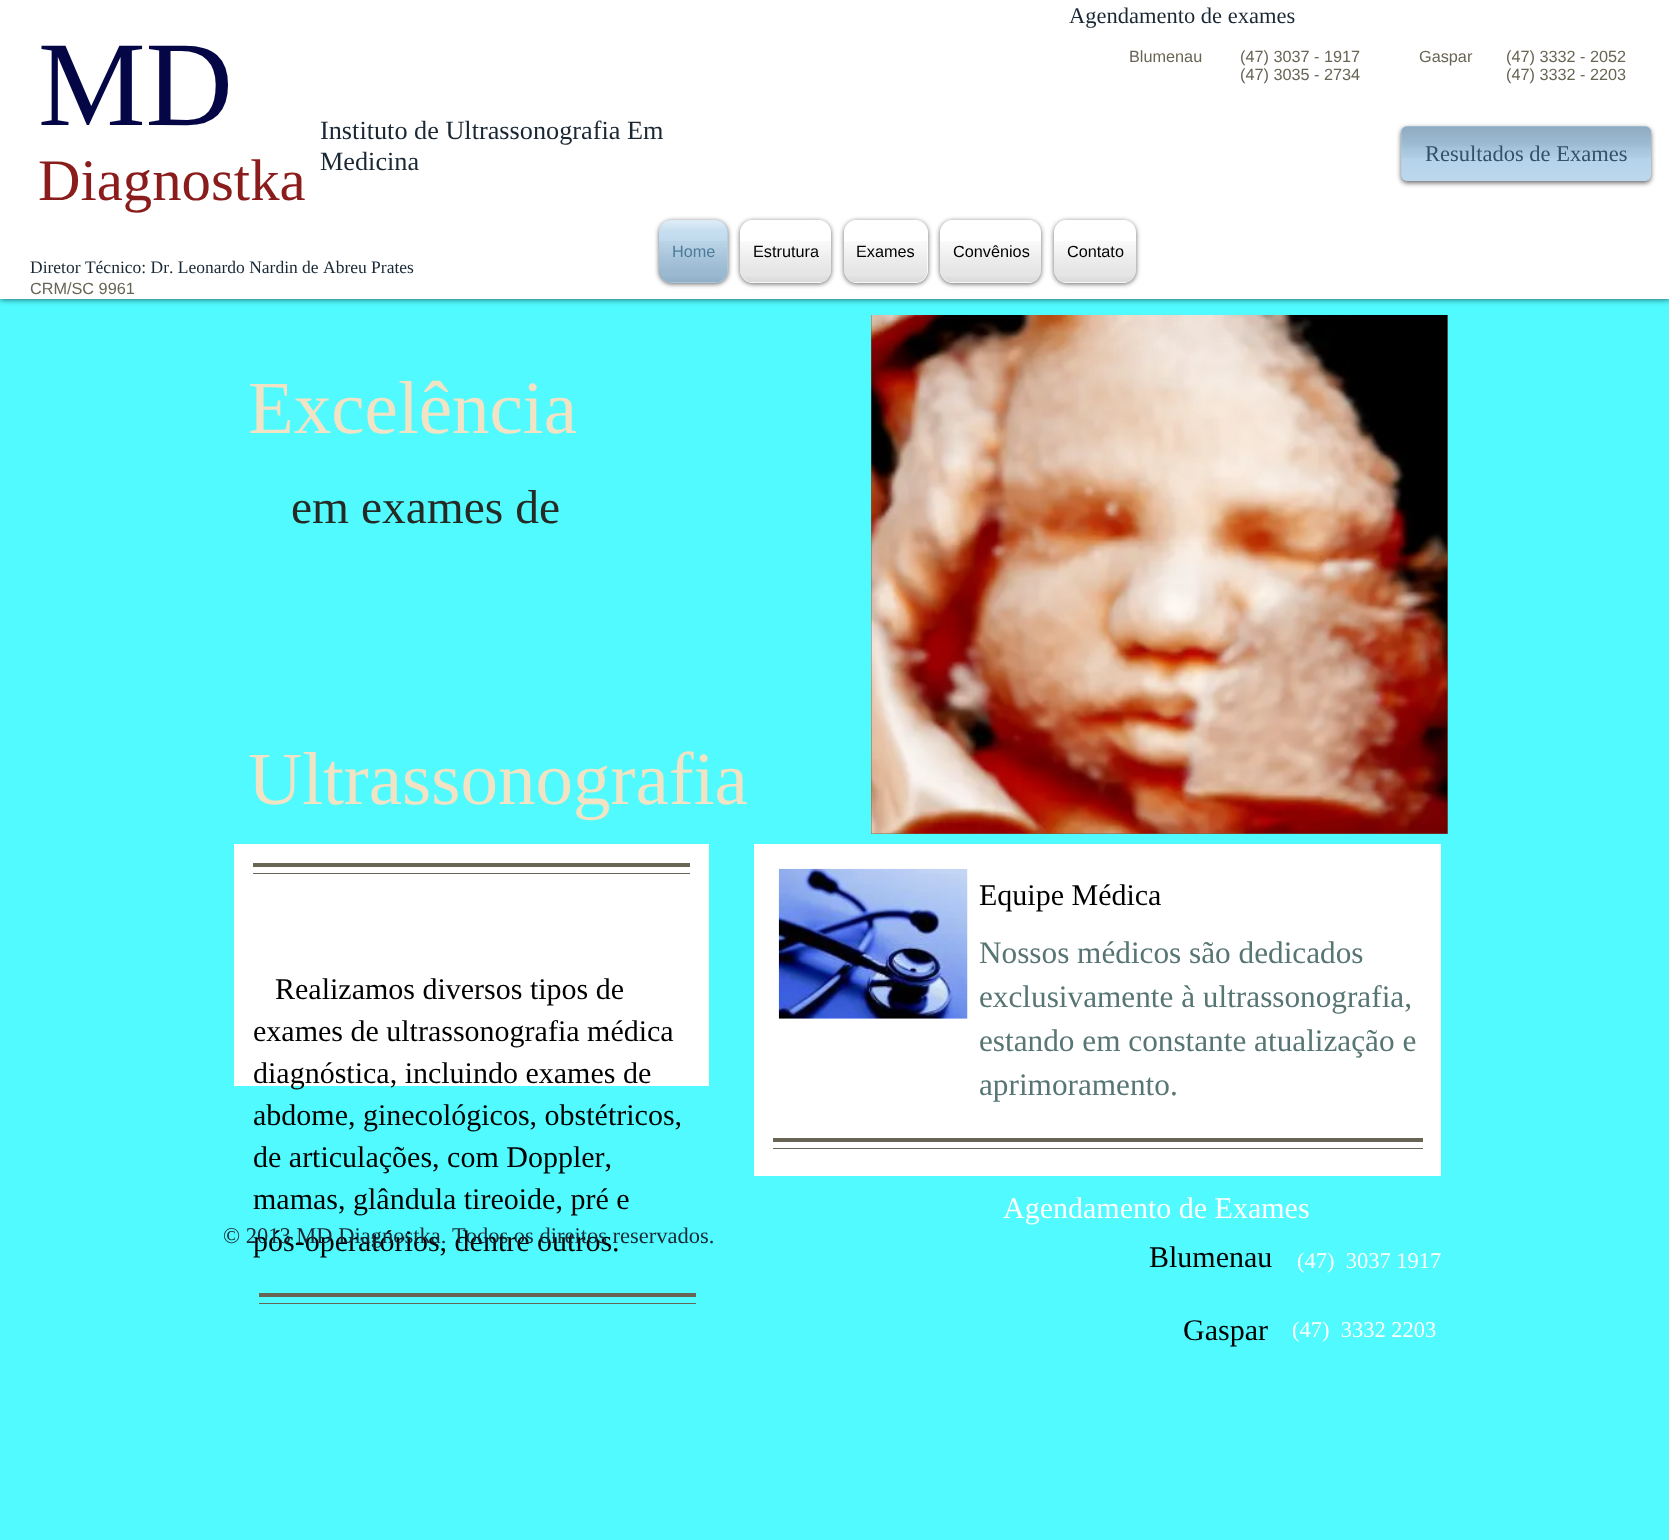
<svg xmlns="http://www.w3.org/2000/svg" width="1669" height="1540">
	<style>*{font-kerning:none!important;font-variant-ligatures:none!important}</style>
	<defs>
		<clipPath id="clip1"><path d="M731 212H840V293H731ZM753 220H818C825 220 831 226 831 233V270C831 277 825 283 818 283H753C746 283 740 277 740 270V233C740 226 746 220 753 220Z" clip-rule="evenodd" /></clipPath>
		<clipPath id="clip2"><path d="M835 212H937V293H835ZM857 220H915C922 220 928 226 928 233V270C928 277 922 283 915 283H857C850 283 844 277 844 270V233C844 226 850 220 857 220Z" clip-rule="evenodd" /></clipPath>
		<clipPath id="clip3"><path d="M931 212H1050V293H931ZM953 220H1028C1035 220 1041 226 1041 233V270C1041 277 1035 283 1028 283H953C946 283 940 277 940 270V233C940 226 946 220 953 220Z" clip-rule="evenodd" /></clipPath>
		<clipPath id="clip4"><path d="M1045 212H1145V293H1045ZM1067 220H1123C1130 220 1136 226 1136 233V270C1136 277 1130 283 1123 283H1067C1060 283 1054 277 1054 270V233C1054 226 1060 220 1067 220Z" clip-rule="evenodd" /></clipPath>
	</defs>
	<rect width="100%" height="100%" fill="#50FAFE" />
	<rect x="0" y="0" width="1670" height="299" fill="#000000" fill-opacity="0.7" filter="blur(3px)" />
	<rect x="0" y="0" width="1669" height="299" fill="#FFFFFF" />
	<text x="1069" y="23" font-family="Liberation Serif" font-size="22.5" fill="#192834">Agendamento de exames</text>
	<text x="38" y="125" font-family="Liberation Serif" font-size="121" fill="#050645">MD</text>
	<g font-family="Liberation Sans" font-size="16.25" fill="#696554">
		<text x="1129" y="62">Blumenau</text>
		<text x="1240" y="62">(47) 3037 - 1917</text>
		<text x="1240" y="80">(47) 3035 - 2734</text>
		<text x="1419" y="62">Gaspar</text>
		<text x="1506" y="62">(47) 3332 - 2052</text>
		<text x="1506" y="80">(47) 3332 - 2203</text>
	</g>
	<g font-family="Liberation Serif" font-size="26.25" fill="#192834">
		<text x="320" y="139">Instituto de Ultrassonografia Em</text>
		<text x="320" y="170">Medicina</text>
	</g>
	<rect x="1401" y="128" width="250" height="55" rx="6" fill="#000000" fill-opacity="0.6" filter="blur(2.5px)" />
	<rect x="1401" y="126" width="250" height="55" rx="6" fill="#ACCEE8" />
	<image x="1401" y="126" width="250" height="32" href="assets/img1.png" />
	<image x="1401" y="146" width="250" height="35" href="assets/img2.png" />
	<text x="1425" y="161" font-family="Liberation Serif" font-size="22.5" fill="#335168">Resultados de Exames</text>
	<text x="38" y="200" font-family="Liberation Serif" font-size="58.75" fill="#8B1C1C">Diagnostka</text>
	<rect x="659" y="221" width="69" height="63" rx="13" fill="#000000" fill-opacity="0.6" filter="blur(2.5px)" />
	<rect x="659" y="220" width="69" height="63" rx="13" fill="#ACCEE8" />
	<image x="659" y="220" width="69" height="49" href="assets/img3.png" />
	<image x="659" y="241" width="69" height="42" href="assets/img4.png" />
	<text x="672" y="257" font-family="Liberation Sans" font-size="16.25" fill="#4C7A9C">Home</text>
	<g clip-path="url(#clip1)">
		<rect x="740" y="221" width="91" height="63" rx="13" fill="#000000" fill-opacity="0.6" filter="blur(2.5px)" />
	</g>
	<rect x="740" y="220" width="91" height="63" rx="13" fill="#FFFFFF" fill-opacity="0.78" />
	<image x="740" y="220" width="91" height="9" href="assets/img5.png" />
	<image x="740" y="241" width="91" height="42" href="assets/img6.png" />
	<text x="753" y="257" font-family="Liberation Sans" font-size="16.25" fill="#000000">Estrutura</text>
	<g clip-path="url(#clip2)">
		<rect x="844" y="221" width="84" height="63" rx="13" fill="#000000" fill-opacity="0.6" filter="blur(2.5px)" />
	</g>
	<rect x="844" y="220" width="84" height="63" rx="13" fill="#FFFFFF" fill-opacity="0.78" />
	<image x="844" y="220" width="79" height="9" href="assets/img7.png" />
	<image x="844" y="241" width="84" height="42" href="assets/img8.png" />
	<text x="856" y="257" font-family="Liberation Sans" font-size="16.25" fill="#000000">Exames</text>
	<g clip-path="url(#clip3)">
		<rect x="940" y="221" width="101" height="63" rx="13" fill="#000000" fill-opacity="0.6" filter="blur(2.5px)" />
	</g>
	<rect x="940" y="220" width="101" height="63" rx="13" fill="#FFFFFF" fill-opacity="0.78" />
	<image x="940" y="220" width="101" height="9" href="assets/img9.png" />
	<image x="940" y="241" width="101" height="42" href="assets/img10.png" />
	<text x="953" y="257" font-family="Liberation Sans" font-size="16.25" fill="#000000">Convênios</text>
	<g clip-path="url(#clip4)">
		<rect x="1054" y="221" width="82" height="63" rx="13" fill="#000000" fill-opacity="0.6" filter="blur(2.5px)" />
	</g>
	<rect x="1054" y="220" width="82" height="63" rx="13" fill="#FFFFFF" fill-opacity="0.78" />
	<image x="1054" y="220" width="82" height="9" href="assets/img11.png" />
	<image x="1054" y="241" width="82" height="42" href="assets/img12.png" />
	<text x="1067" y="257" font-family="Liberation Sans" font-size="16.25" fill="#000000">Contato</text>
	<text x="30" y="273" font-family="Liberation Serif" font-size="17.5" fill="#192834">Diretor Técnico: Dr. Leonardo Nardin de Abreu Prates</text>
	<text x="30" y="294" font-family="Liberation Sans" font-size="16.25" fill="#696554">CRM/SC 9961</text>
	<text x="248" y="433" font-family="Liberation Serif" font-size="75" fill="#F1E3C3">Excelência</text>
	<rect x="871" y="315" width="577" height="519" fill="#696554" />
	<image x="871" y="315" width="577" height="519" href="assets/img13.png" />
	<text x="291" y="523" font-family="Liberation Serif" font-size="47.5" fill="#262A24">em exames de</text>
	<text x="248" y="804" font-family="Liberation Serif" font-size="75" fill="#F1E3C3">Ultrassonografia</text>
	<rect x="234" y="844" width="475" height="242" fill="#FFFFFF" />
	<rect x="253" y="863" width="437" height="4" fill="#696554" />
	<rect x="253" y="873" width="437" height="1" fill="#696554" />
	<g font-family="Liberation Serif" font-size="30" fill="#000000">
		<text x="275" y="999">Realizamos diversos tipos de</text>
		<text x="253" y="1041">exames de ultrassonografia médica</text>
		<text x="253" y="1083">diagnóstica, incluindo exames de</text>
		<text x="253" y="1125">abdome, ginecológicos, obstétricos,</text>
		<text x="253" y="1167">de articulações, com Doppler,</text>
		<text x="253" y="1209">mamas, glândula tireoide, pré e</text>
		<text x="253" y="1251">pós-operatórios, dentre outros.</text>
	</g>
	<rect x="259" y="1293" width="437" height="4" fill="#696554" />
	<rect x="259" y="1303" width="437" height="1" fill="#696554" />
	<rect x="754" y="844" width="687" height="332" fill="#FFFFFF" />
	<image x="778" y="868" width="190" height="151" href="assets/img14.png" />
	<text x="979" y="905" font-family="Liberation Serif" font-size="30" fill="#000000">Equipe Médica</text>
	<g font-family="Liberation Serif" font-size="31.25" fill="#577573">
		<text x="979" y="963">Nossos médicos são dedicados</text>
		<text x="979" y="1007">exclusivamente à ultrassonografia,</text>
		<text x="979" y="1051">estando em constante atualização e</text>
		<text x="979" y="1095">aprimoramento.</text>
	</g>
	<rect x="773" y="1138" width="650" height="4" fill="#696554" />
	<rect x="773" y="1148" width="650" height="1" fill="#696554" />
	<text x="1003" y="1218" font-family="Liberation Serif" font-size="30" fill="#FFFFFF">Agendamento de Exames</text>
	<text x="223" y="1243" font-family="Liberation Serif" font-size="22.5" fill="#192834">© 2013 MD Diagnostka. Todos os direitos reservados.</text>
	<text x="1149" y="1267" font-family="Liberation Serif" font-size="30" fill="#000000">Blumenau</text>
	<text x="1297" y="1268" font-family="Liberation Serif" font-size="22.5" fill="#FFFFFF" xml:space="preserve">(47)  3037 1917</text>
	<text x="1183" y="1340" font-family="Liberation Serif" font-size="30" fill="#000000">Gaspar</text>
	<text x="1292" y="1337" font-family="Liberation Serif" font-size="22.5" fill="#FFFFFF" xml:space="preserve">(47)  3332 2203</text>
</svg>
